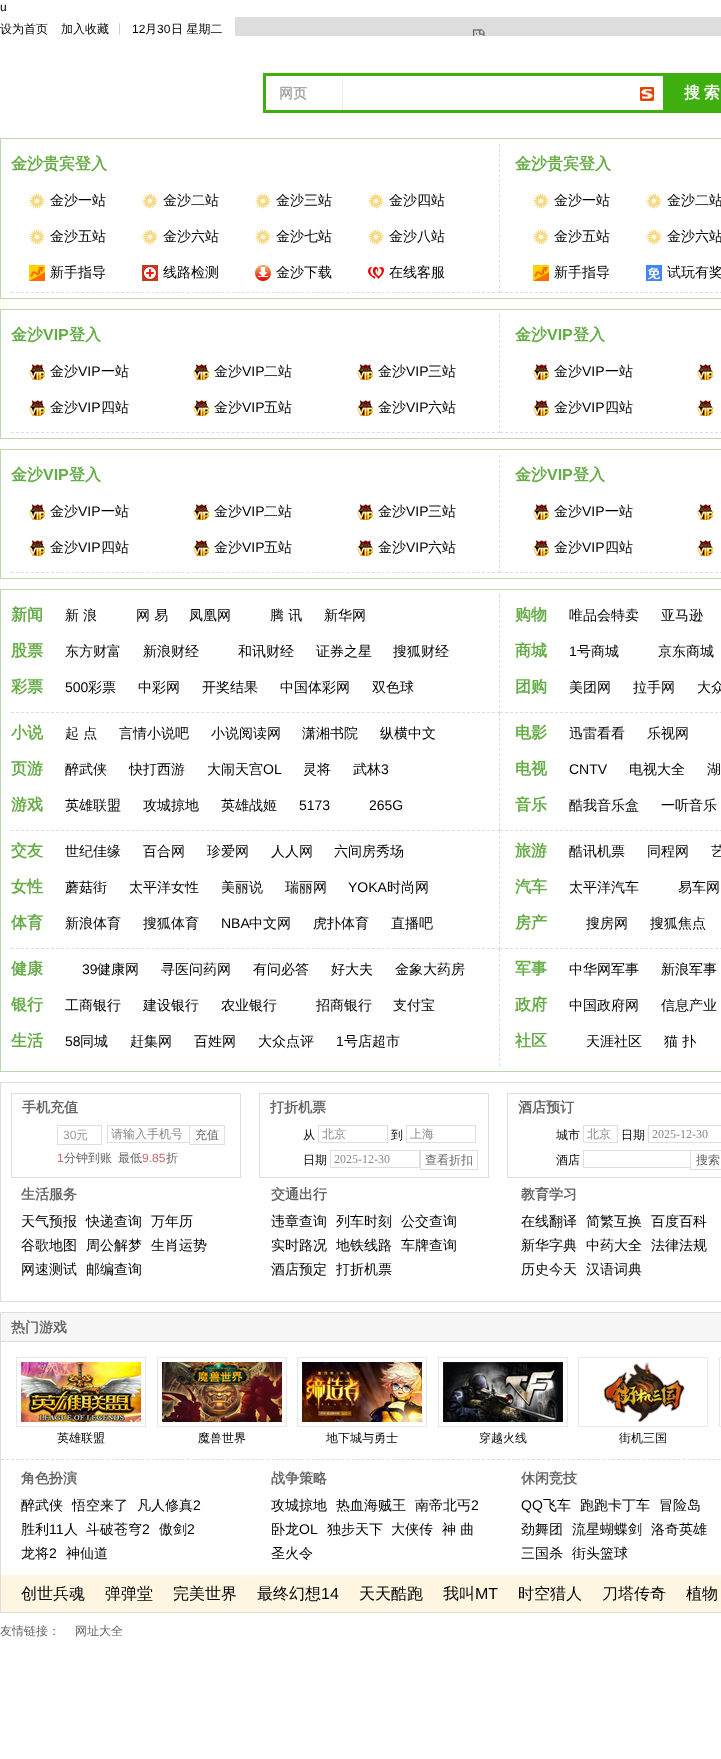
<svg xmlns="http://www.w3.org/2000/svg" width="721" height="1759">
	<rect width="100%" height="100%" fill="#FFFFFF" />
	<text x="0" y="11" font-family="Liberation Sans" font-size="12" fill="#000000">u</text>
	<g font-family="WenQuanYi Zen Hei" font-size="12" font-weight="500" fill="#000000">
		<text x="0" y="33">设为首页</text>
		<text x="61" y="33">加入收藏</text>
	</g>
	<text x="118" y="32" font-family="Liberation Sans" font-size="12" fill="#C7C7C7">|</text>
	<text x="132" y="33" font-family="Liberation Sans" font-size="12" fill="#000000">12</text>
	<text x="145" y="33" font-family="WenQuanYi Zen Hei" font-size="12" font-weight="500" fill="#000000">月</text>
	<text x="157" y="33" font-family="Liberation Sans" font-size="12" fill="#000000">30</text>
	<text x="171" y="33" font-family="WenQuanYi Zen Hei" font-size="12" font-weight="500" fill="#000000">日 星期二</text>
	<image x="235" y="17" width="486" height="19" href="assets/img1.png" />
	<rect x="264.5" y="74.5" width="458" height="37" fill="none" stroke="#3EAF0E" stroke-width="3" />
	<rect x="342" y="76" width="1" height="34" fill="#ECECEC" />
	<text x="279" y="98" font-family="WenQuanYi Zen Hei" font-size="14" font-weight="700" fill="#A8A8A8">网页</text>
	<image x="640" y="87" width="14" height="14" href="assets/img2.png" />
	<rect x="663" y="76" width="58" height="34" fill="#3EAF0E" />
	<text x="684" y="98" word-spacing="-1" font-family="WenQuanYi Zen Hei" font-size="16" font-weight="700" fill="#FFFFFF">搜 索</text>
	<rect x="0.5" y="138.5" width="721" height="160" fill="none" stroke="#BBD8AD" />
	<path d="M499.5 144V293" fill="none" stroke="#DDDDDD" stroke-dasharray="3 2.03" />
	<path d="M11 292.5H500" fill="none" stroke="#DDDDDD" stroke-dasharray="3 2.01" />
	<text x="11" y="169" font-family="WenQuanYi Zen Hei" font-size="16" font-weight="700" fill="#65AC47">金沙贵宾登入</text>
	<image x="29" y="193" width="16" height="16" href="assets/img3.png" />
	<text x="50" y="205" font-family="WenQuanYi Zen Hei" font-size="14" font-weight="500" fill="#000000">金沙一站</text>
	<image x="142" y="193" width="16" height="16" href="assets/img3.png" />
	<text x="163" y="205" font-family="WenQuanYi Zen Hei" font-size="14" font-weight="500" fill="#000000">金沙二站</text>
	<image x="255" y="193" width="16" height="16" href="assets/img3.png" />
	<text x="276" y="205" font-family="WenQuanYi Zen Hei" font-size="14" font-weight="500" fill="#000000">金沙三站</text>
	<image x="368" y="193" width="16" height="16" href="assets/img3.png" />
	<text x="389" y="205" font-family="WenQuanYi Zen Hei" font-size="14" font-weight="500" fill="#000000">金沙四站</text>
	<image x="29" y="229" width="16" height="16" href="assets/img3.png" />
	<text x="50" y="241" font-family="WenQuanYi Zen Hei" font-size="14" font-weight="500" fill="#000000">金沙五站</text>
	<image x="142" y="229" width="16" height="16" href="assets/img3.png" />
	<text x="163" y="241" font-family="WenQuanYi Zen Hei" font-size="14" font-weight="500" fill="#000000">金沙六站</text>
	<image x="255" y="229" width="16" height="16" href="assets/img3.png" />
	<text x="276" y="241" font-family="WenQuanYi Zen Hei" font-size="14" font-weight="500" fill="#000000">金沙七站</text>
	<image x="368" y="229" width="16" height="16" href="assets/img3.png" />
	<text x="389" y="241" font-family="WenQuanYi Zen Hei" font-size="14" font-weight="500" fill="#000000">金沙八站</text>
	<image x="29" y="265" width="16" height="16" href="assets/img4.png" />
	<text x="50" y="277" font-family="WenQuanYi Zen Hei" font-size="14" font-weight="500" fill="#000000">新手指导</text>
	<image x="142" y="265" width="16" height="16" href="assets/img5.png" />
	<text x="163" y="277" font-family="WenQuanYi Zen Hei" font-size="14" font-weight="500" fill="#000000">线路检测</text>
	<image x="255" y="265" width="16" height="16" href="assets/img6.png" />
	<text x="276" y="277" font-family="WenQuanYi Zen Hei" font-size="14" font-weight="500" fill="#000000">金沙下载</text>
	<image x="368" y="267" width="16" height="12" href="assets/img7.png" />
	<text x="389" y="277" font-family="WenQuanYi Zen Hei" font-size="14" font-weight="500" fill="#000000">在线客服</text>
	<path d="M500 292.5H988" fill="none" stroke="#DDDDDD" stroke-dasharray="3 2" />
	<text x="515" y="169" font-family="WenQuanYi Zen Hei" font-size="16" font-weight="700" fill="#65AC47">金沙贵宾登入</text>
	<image x="533" y="193" width="16" height="16" href="assets/img3.png" />
	<text x="554" y="205" font-family="WenQuanYi Zen Hei" font-size="14" font-weight="500" fill="#000000">金沙一站</text>
	<image x="646" y="193" width="16" height="16" href="assets/img3.png" />
	<text x="667" y="205" font-family="WenQuanYi Zen Hei" font-size="14" font-weight="500" fill="#000000">金沙二站</text>
	<image x="533" y="229" width="16" height="16" href="assets/img3.png" />
	<text x="554" y="241" font-family="WenQuanYi Zen Hei" font-size="14" font-weight="500" fill="#000000">金沙五站</text>
	<image x="646" y="229" width="16" height="16" href="assets/img3.png" />
	<text x="667" y="241" font-family="WenQuanYi Zen Hei" font-size="14" font-weight="500" fill="#000000">金沙六站</text>
	<image x="533" y="265" width="16" height="16" href="assets/img4.png" />
	<text x="554" y="277" font-family="WenQuanYi Zen Hei" font-size="14" font-weight="500" fill="#000000">新手指导</text>
	<image x="646" y="265" width="16" height="16" href="assets/img8.png" />
	<text x="667" y="277" font-family="WenQuanYi Zen Hei" font-size="14" font-weight="500" fill="#000000">试玩有奖</text>
	<rect x="0.5" y="309.5" width="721" height="129" fill="none" stroke="#BBD8AD" />
	<path d="M499.5 315V433" fill="none" stroke="#DDDDDD" stroke-dasharray="3 2" />
	<path d="M11 432.5H500" fill="none" stroke="#DDDDDD" stroke-dasharray="3 2.01" />
	<text x="11" y="340" font-family="WenQuanYi Zen Hei" font-size="16" font-weight="700" fill="#65AC47">金沙</text>
	<text x="43" y="340" font-family="Liberation Sans" font-size="16" font-weight="700" fill="#65AC47">VIP</text>
	<text x="69" y="340" font-family="WenQuanYi Zen Hei" font-size="16" font-weight="700" fill="#65AC47">登入</text>
	<image x="29" y="364" width="16" height="16" href="assets/img9.png" />
	<text x="50" y="376" font-family="WenQuanYi Zen Hei" font-size="14" font-weight="500" fill="#000000">金沙</text>
	<text x="78" y="376" font-family="Liberation Sans" font-size="14" fill="#000000">VIP</text>
	<text x="101" y="376" font-family="WenQuanYi Zen Hei" font-size="14" font-weight="500" fill="#000000">一站</text>
	<image x="193" y="364" width="16" height="16" href="assets/img9.png" />
	<text x="214" y="376" font-family="WenQuanYi Zen Hei" font-size="14" font-weight="500" fill="#000000">金沙</text>
	<text x="242" y="376" font-family="Liberation Sans" font-size="14" fill="#000000">VIP</text>
	<text x="264" y="376" font-family="WenQuanYi Zen Hei" font-size="14" font-weight="500" fill="#000000">二站</text>
	<image x="357" y="364" width="16" height="16" href="assets/img9.png" />
	<text x="378" y="376" font-family="WenQuanYi Zen Hei" font-size="14" font-weight="500" fill="#000000">金沙</text>
	<text x="406" y="376" font-family="Liberation Sans" font-size="14" fill="#000000">VIP</text>
	<text x="428" y="376" font-family="WenQuanYi Zen Hei" font-size="14" font-weight="500" fill="#000000">三站</text>
	<image x="29" y="400" width="16" height="16" href="assets/img9.png" />
	<text x="50" y="412" font-family="WenQuanYi Zen Hei" font-size="14" font-weight="500" fill="#000000">金沙</text>
	<text x="78" y="412" font-family="Liberation Sans" font-size="14" fill="#000000">VIP</text>
	<text x="101" y="412" font-family="WenQuanYi Zen Hei" font-size="14" font-weight="500" fill="#000000">四站</text>
	<image x="193" y="400" width="16" height="16" href="assets/img9.png" />
	<text x="214" y="412" font-family="WenQuanYi Zen Hei" font-size="14" font-weight="500" fill="#000000">金沙</text>
	<text x="242" y="412" font-family="Liberation Sans" font-size="14" fill="#000000">VIP</text>
	<text x="264" y="412" font-family="WenQuanYi Zen Hei" font-size="14" font-weight="500" fill="#000000">五站</text>
	<image x="357" y="400" width="16" height="16" href="assets/img9.png" />
	<text x="378" y="412" font-family="WenQuanYi Zen Hei" font-size="14" font-weight="500" fill="#000000">金沙</text>
	<text x="406" y="412" font-family="Liberation Sans" font-size="14" fill="#000000">VIP</text>
	<text x="428" y="412" font-family="WenQuanYi Zen Hei" font-size="14" font-weight="500" fill="#000000">六站</text>
	<path d="M500 432.5H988" fill="none" stroke="#DDDDDD" stroke-dasharray="3 2" />
	<text x="515" y="340" font-family="WenQuanYi Zen Hei" font-size="16" font-weight="700" fill="#65AC47">金沙</text>
	<text x="547" y="340" font-family="Liberation Sans" font-size="16" font-weight="700" fill="#65AC47">VIP</text>
	<text x="573" y="340" font-family="WenQuanYi Zen Hei" font-size="16" font-weight="700" fill="#65AC47">登入</text>
	<image x="533" y="364" width="16" height="16" href="assets/img9.png" />
	<text x="554" y="376" font-family="WenQuanYi Zen Hei" font-size="14" font-weight="500" fill="#000000">金沙</text>
	<text x="582" y="376" font-family="Liberation Sans" font-size="14" fill="#000000">VIP</text>
	<text x="605" y="376" font-family="WenQuanYi Zen Hei" font-size="14" font-weight="500" fill="#000000">一站</text>
	<image x="697" y="364" width="16" height="16" href="assets/img9.png" />
	<image x="533" y="400" width="16" height="16" href="assets/img9.png" />
	<text x="554" y="412" font-family="WenQuanYi Zen Hei" font-size="14" font-weight="500" fill="#000000">金沙</text>
	<text x="582" y="412" font-family="Liberation Sans" font-size="14" fill="#000000">VIP</text>
	<text x="605" y="412" font-family="WenQuanYi Zen Hei" font-size="14" font-weight="500" fill="#000000">四站</text>
	<image x="697" y="400" width="16" height="16" href="assets/img9.png" />
	<rect x="0.5" y="449.5" width="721" height="129" fill="none" stroke="#BBD8AD" />
	<path d="M499.5 455V573" fill="none" stroke="#DDDDDD" stroke-dasharray="3 2" />
	<path d="M11 572.5H500" fill="none" stroke="#DDDDDD" stroke-dasharray="3 2.01" />
	<text x="11" y="480" font-family="WenQuanYi Zen Hei" font-size="16" font-weight="700" fill="#65AC47">金沙</text>
	<text x="43" y="480" font-family="Liberation Sans" font-size="16" font-weight="700" fill="#65AC47">VIP</text>
	<text x="69" y="480" font-family="WenQuanYi Zen Hei" font-size="16" font-weight="700" fill="#65AC47">登入</text>
	<image x="29" y="504" width="16" height="16" href="assets/img9.png" />
	<text x="50" y="516" font-family="WenQuanYi Zen Hei" font-size="14" font-weight="500" fill="#000000">金沙</text>
	<text x="78" y="516" font-family="Liberation Sans" font-size="14" fill="#000000">VIP</text>
	<text x="101" y="516" font-family="WenQuanYi Zen Hei" font-size="14" font-weight="500" fill="#000000">一站</text>
	<image x="193" y="504" width="16" height="16" href="assets/img9.png" />
	<text x="214" y="516" font-family="WenQuanYi Zen Hei" font-size="14" font-weight="500" fill="#000000">金沙</text>
	<text x="242" y="516" font-family="Liberation Sans" font-size="14" fill="#000000">VIP</text>
	<text x="264" y="516" font-family="WenQuanYi Zen Hei" font-size="14" font-weight="500" fill="#000000">二站</text>
	<image x="357" y="504" width="16" height="16" href="assets/img9.png" />
	<text x="378" y="516" font-family="WenQuanYi Zen Hei" font-size="14" font-weight="500" fill="#000000">金沙</text>
	<text x="406" y="516" font-family="Liberation Sans" font-size="14" fill="#000000">VIP</text>
	<text x="428" y="516" font-family="WenQuanYi Zen Hei" font-size="14" font-weight="500" fill="#000000">三站</text>
	<image x="29" y="540" width="16" height="16" href="assets/img9.png" />
	<text x="50" y="552" font-family="WenQuanYi Zen Hei" font-size="14" font-weight="500" fill="#000000">金沙</text>
	<text x="78" y="552" font-family="Liberation Sans" font-size="14" fill="#000000">VIP</text>
	<text x="101" y="552" font-family="WenQuanYi Zen Hei" font-size="14" font-weight="500" fill="#000000">四站</text>
	<image x="193" y="540" width="16" height="16" href="assets/img9.png" />
	<text x="214" y="552" font-family="WenQuanYi Zen Hei" font-size="14" font-weight="500" fill="#000000">金沙</text>
	<text x="242" y="552" font-family="Liberation Sans" font-size="14" fill="#000000">VIP</text>
	<text x="264" y="552" font-family="WenQuanYi Zen Hei" font-size="14" font-weight="500" fill="#000000">五站</text>
	<image x="357" y="540" width="16" height="16" href="assets/img9.png" />
	<text x="378" y="552" font-family="WenQuanYi Zen Hei" font-size="14" font-weight="500" fill="#000000">金沙</text>
	<text x="406" y="552" font-family="Liberation Sans" font-size="14" fill="#000000">VIP</text>
	<text x="428" y="552" font-family="WenQuanYi Zen Hei" font-size="14" font-weight="500" fill="#000000">六站</text>
	<path d="M500 572.5H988" fill="none" stroke="#DDDDDD" stroke-dasharray="3 2" />
	<text x="515" y="480" font-family="WenQuanYi Zen Hei" font-size="16" font-weight="700" fill="#65AC47">金沙</text>
	<text x="547" y="480" font-family="Liberation Sans" font-size="16" font-weight="700" fill="#65AC47">VIP</text>
	<text x="573" y="480" font-family="WenQuanYi Zen Hei" font-size="16" font-weight="700" fill="#65AC47">登入</text>
	<image x="533" y="504" width="16" height="16" href="assets/img9.png" />
	<text x="554" y="516" font-family="WenQuanYi Zen Hei" font-size="14" font-weight="500" fill="#000000">金沙</text>
	<text x="582" y="516" font-family="Liberation Sans" font-size="14" fill="#000000">VIP</text>
	<text x="605" y="516" font-family="WenQuanYi Zen Hei" font-size="14" font-weight="500" fill="#000000">一站</text>
	<image x="697" y="504" width="16" height="16" href="assets/img9.png" />
	<image x="533" y="540" width="16" height="16" href="assets/img9.png" />
	<text x="554" y="552" font-family="WenQuanYi Zen Hei" font-size="14" font-weight="500" fill="#000000">金沙</text>
	<text x="582" y="552" font-family="Liberation Sans" font-size="14" fill="#000000">VIP</text>
	<text x="605" y="552" font-family="WenQuanYi Zen Hei" font-size="14" font-weight="500" fill="#000000">四站</text>
	<image x="697" y="540" width="16" height="16" href="assets/img9.png" />
	<rect x="0.5" y="589.5" width="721" height="482" fill="none" stroke="#BBD8AD" />
	<path d="M499.5 595V713" fill="none" stroke="#DDDDDD" stroke-dasharray="3 2" />
	<path d="M11 712.5H500" fill="none" stroke="#DDDDDD" stroke-dasharray="3 2.01" />
	<text x="11" y="620" font-family="WenQuanYi Zen Hei" font-size="16" font-weight="700" fill="#65AC47">新闻</text>
	<g font-family="WenQuanYi Zen Hei" font-size="14" font-weight="500" fill="#000000">
		<text x="65" y="620">新</text>
		<text x="83" y="620">浪</text>
		<text x="136" y="620">网 易</text>
		<text x="189" y="620">凤凰网</text>
		<text x="270" y="620">腾 讯</text>
		<text x="324" y="620">新华网</text>
	</g>
	<text x="11" y="656" font-family="WenQuanYi Zen Hei" font-size="16" font-weight="700" fill="#65AC47">股票</text>
	<g font-family="WenQuanYi Zen Hei" font-size="14" font-weight="500" fill="#000000">
		<text x="65" y="656">东方财富</text>
		<text x="143" y="656">新浪财经</text>
		<text x="238" y="656">和讯财经</text>
		<text x="316" y="656">证券之星</text>
		<text x="393" y="656">搜狐财经</text>
	</g>
	<text x="11" y="692" font-family="WenQuanYi Zen Hei" font-size="16" font-weight="700" fill="#65AC47">彩票</text>
	<text x="65" y="692" font-family="Liberation Sans" font-size="14" fill="#000000">500</text>
	<g font-family="WenQuanYi Zen Hei" font-size="14" font-weight="500" fill="#000000">
		<text x="88" y="692">彩票</text>
		<text x="138" y="692">中彩网</text>
		<text x="202" y="692">开奖结果</text>
		<text x="280" y="692">中国体彩网</text>
		<text x="372" y="692">双色球</text>
	</g>
	<path d="M500 712.5H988" fill="none" stroke="#DDDDDD" stroke-dasharray="3 2" />
	<text x="515" y="620" font-family="WenQuanYi Zen Hei" font-size="16" font-weight="700" fill="#65AC47">购物</text>
	<g font-family="WenQuanYi Zen Hei" font-size="14" font-weight="500" fill="#000000">
		<text x="569" y="620">唯品会特卖</text>
		<text x="661" y="620">亚马逊</text>
	</g>
	<text x="515" y="656" font-family="WenQuanYi Zen Hei" font-size="16" font-weight="700" fill="#65AC47">商城</text>
	<text x="569" y="656" font-family="Liberation Sans" font-size="14" fill="#000000">1</text>
	<g font-family="WenQuanYi Zen Hei" font-size="14" font-weight="500" fill="#000000">
		<text x="577" y="656">号商城</text>
		<text x="658" y="656">京东商城</text>
	</g>
	<text x="515" y="692" font-family="WenQuanYi Zen Hei" font-size="16" font-weight="700" fill="#65AC47">团购</text>
	<g font-family="WenQuanYi Zen Hei" font-size="14" font-weight="500" fill="#000000">
		<text x="569" y="692">美团网</text>
		<text x="633" y="692">拉手网</text>
		<text x="697" y="692">大众</text>
	</g>
	<path d="M499.5 713V831" fill="none" stroke="#DDDDDD" stroke-dasharray="3 2" />
	<path d="M11 830.5H500" fill="none" stroke="#DDDDDD" stroke-dasharray="3 2.01" />
	<text x="11" y="738" font-family="WenQuanYi Zen Hei" font-size="16" font-weight="700" fill="#65AC47">小说</text>
	<g font-family="WenQuanYi Zen Hei" font-size="14" font-weight="500" fill="#000000">
		<text x="65" y="738">起 点</text>
		<text x="119" y="738">言情小说吧</text>
		<text x="211" y="738">小说阅读网</text>
		<text x="302" y="738">潇湘书院</text>
		<text x="380" y="738">纵横中文</text>
	</g>
	<text x="11" y="774" font-family="WenQuanYi Zen Hei" font-size="16" font-weight="700" fill="#65AC47">页游</text>
	<g font-family="WenQuanYi Zen Hei" font-size="14" font-weight="500" fill="#000000">
		<text x="65" y="774">醉武侠</text>
		<text x="129" y="774">快打西游</text>
		<text x="207" y="774">大闹天宫</text>
	</g>
	<text x="263" y="774" font-family="Liberation Sans" font-size="14" fill="#000000">OL</text>
	<g font-family="WenQuanYi Zen Hei" font-size="14" font-weight="500" fill="#000000">
		<text x="303" y="774">灵将</text>
		<text x="353" y="774">武林</text>
	</g>
	<text x="381" y="774" font-family="Liberation Sans" font-size="14" fill="#000000">3</text>
	<text x="11" y="810" font-family="WenQuanYi Zen Hei" font-size="16" font-weight="700" fill="#65AC47">游戏</text>
	<g font-family="WenQuanYi Zen Hei" font-size="14" font-weight="500" fill="#000000">
		<text x="65" y="810">英雄联盟</text>
		<text x="143" y="810">攻城掠地</text>
		<text x="221" y="810">英雄战姬</text>
	</g>
	<g font-family="Liberation Sans" font-size="14" fill="#000000">
		<text x="299" y="810">5173</text>
		<text x="369" y="810">265G</text>
	</g>
	<path d="M500 830.5H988" fill="none" stroke="#DDDDDD" stroke-dasharray="3 2" />
	<text x="515" y="738" font-family="WenQuanYi Zen Hei" font-size="16" font-weight="700" fill="#65AC47">电影</text>
	<g font-family="WenQuanYi Zen Hei" font-size="14" font-weight="500" fill="#000000">
		<text x="569" y="738">迅雷看看</text>
		<text x="647" y="738">乐视网</text>
	</g>
	<text x="515" y="774" font-family="WenQuanYi Zen Hei" font-size="16" font-weight="700" fill="#65AC47">电视</text>
	<text x="569" y="774" font-family="Liberation Sans" font-size="14" fill="#000000">CNTV</text>
	<g font-family="WenQuanYi Zen Hei" font-size="14" font-weight="500" fill="#000000">
		<text x="629" y="774">电视大全</text>
		<text x="707" y="774">湖</text>
	</g>
	<text x="515" y="810" font-family="WenQuanYi Zen Hei" font-size="16" font-weight="700" fill="#65AC47">音乐</text>
	<g font-family="WenQuanYi Zen Hei" font-size="14" font-weight="500" fill="#000000">
		<text x="569" y="810">酷我音乐盒</text>
		<text x="661" y="810">一听音乐</text>
	</g>
	<path d="M499.5 831V949" fill="none" stroke="#DDDDDD" stroke-dasharray="3 2" />
	<path d="M11 948.5H500" fill="none" stroke="#DDDDDD" stroke-dasharray="3 2.01" />
	<text x="11" y="856" font-family="WenQuanYi Zen Hei" font-size="16" font-weight="700" fill="#65AC47">交友</text>
	<g font-family="WenQuanYi Zen Hei" font-size="14" font-weight="500" fill="#000000">
		<text x="65" y="856">世纪佳缘</text>
		<text x="143" y="856">百合网</text>
		<text x="207" y="856">珍爱网</text>
		<text x="271" y="856">人人网</text>
		<text x="334" y="856">六间房秀场</text>
	</g>
	<text x="11" y="892" font-family="WenQuanYi Zen Hei" font-size="16" font-weight="700" fill="#65AC47">女性</text>
	<g font-family="WenQuanYi Zen Hei" font-size="14" font-weight="500" fill="#000000">
		<text x="65" y="892">蘑菇街</text>
		<text x="129" y="892">太平洋女性</text>
		<text x="221" y="892">美丽说</text>
		<text x="285" y="892">瑞丽网</text>
	</g>
	<text x="348" y="892" font-family="Liberation Sans" font-size="14" fill="#000000">YOKA</text>
	<text x="387" y="892" font-family="WenQuanYi Zen Hei" font-size="14" font-weight="500" fill="#000000">时尚网</text>
	<text x="11" y="928" font-family="WenQuanYi Zen Hei" font-size="16" font-weight="700" fill="#65AC47">体育</text>
	<g font-family="WenQuanYi Zen Hei" font-size="14" font-weight="500" fill="#000000">
		<text x="65" y="928">新浪体育</text>
		<text x="143" y="928">搜狐体育</text>
	</g>
	<text x="221" y="928" font-family="Liberation Sans" font-size="14" fill="#000000">NBA</text>
	<g font-family="WenQuanYi Zen Hei" font-size="14" font-weight="500" fill="#000000">
		<text x="249" y="928">中文网</text>
		<text x="313" y="928">虎扑体育</text>
		<text x="391" y="928">直播吧</text>
	</g>
	<path d="M500 948.5H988" fill="none" stroke="#DDDDDD" stroke-dasharray="3 2" />
	<text x="515" y="856" font-family="WenQuanYi Zen Hei" font-size="16" font-weight="700" fill="#65AC47">旅游</text>
	<g font-family="WenQuanYi Zen Hei" font-size="14" font-weight="500" fill="#000000">
		<text x="569" y="856">酷讯机票</text>
		<text x="647" y="856">同程网</text>
		<text x="711" y="856">艺</text>
	</g>
	<text x="515" y="892" font-family="WenQuanYi Zen Hei" font-size="16" font-weight="700" fill="#65AC47">汽车</text>
	<g font-family="WenQuanYi Zen Hei" font-size="14" font-weight="500" fill="#000000">
		<text x="569" y="892">太平洋汽车</text>
		<text x="678" y="892">易车网</text>
	</g>
	<text x="515" y="928" font-family="WenQuanYi Zen Hei" font-size="16" font-weight="700" fill="#65AC47">房产</text>
	<g font-family="WenQuanYi Zen Hei" font-size="14" font-weight="500" fill="#000000">
		<text x="586" y="928">搜房网</text>
		<text x="650" y="928">搜狐焦点</text>
	</g>
	<path d="M499.5 949V1066" fill="none" stroke="#DDDDDD" stroke-dasharray="3 1.96" />
	<text x="11" y="974" font-family="WenQuanYi Zen Hei" font-size="16" font-weight="700" fill="#65AC47">健康</text>
	<text x="82" y="974" font-family="Liberation Sans" font-size="14" fill="#000000">39</text>
	<g font-family="WenQuanYi Zen Hei" font-size="14" font-weight="500" fill="#000000">
		<text x="97" y="974">健康网</text>
		<text x="161" y="974">寻医问药网</text>
		<text x="253" y="974">有问必答</text>
		<text x="331" y="974">好大夫</text>
		<text x="395" y="974">金象大药房</text>
	</g>
	<text x="11" y="1010" font-family="WenQuanYi Zen Hei" font-size="16" font-weight="700" fill="#65AC47">银行</text>
	<g font-family="WenQuanYi Zen Hei" font-size="14" font-weight="500" fill="#000000">
		<text x="65" y="1010">工商银行</text>
		<text x="143" y="1010">建设银行</text>
		<text x="221" y="1010">农业银行</text>
		<text x="316" y="1010">招商银行</text>
		<text x="393" y="1010">支付宝</text>
	</g>
	<text x="11" y="1046" font-family="WenQuanYi Zen Hei" font-size="16" font-weight="700" fill="#65AC47">生活</text>
	<text x="65" y="1046" font-family="Liberation Sans" font-size="14" fill="#000000">58</text>
	<g font-family="WenQuanYi Zen Hei" font-size="14" font-weight="500" fill="#000000">
		<text x="80" y="1046">同城</text>
		<text x="130" y="1046">赶集网</text>
		<text x="194" y="1046">百姓网</text>
		<text x="258" y="1046">大众点评</text>
	</g>
	<text x="336" y="1046" font-family="Liberation Sans" font-size="14" fill="#000000">1</text>
	<text x="344" y="1046" font-family="WenQuanYi Zen Hei" font-size="14" font-weight="500" fill="#000000">号店超市</text>
	<text x="515" y="974" font-family="WenQuanYi Zen Hei" font-size="16" font-weight="700" fill="#65AC47">军事</text>
	<g font-family="WenQuanYi Zen Hei" font-size="14" font-weight="500" fill="#000000">
		<text x="569" y="974">中华网军事</text>
		<text x="661" y="974">新浪军事</text>
	</g>
	<text x="515" y="1010" font-family="WenQuanYi Zen Hei" font-size="16" font-weight="700" fill="#65AC47">政府</text>
	<g font-family="WenQuanYi Zen Hei" font-size="14" font-weight="500" fill="#000000">
		<text x="569" y="1010">中国政府网</text>
		<text x="661" y="1010">信息产业</text>
	</g>
	<text x="515" y="1046" font-family="WenQuanYi Zen Hei" font-size="16" font-weight="700" fill="#65AC47">社区</text>
	<g font-family="WenQuanYi Zen Hei" font-size="14" font-weight="500" fill="#000000">
		<text x="586" y="1046">天涯社区</text>
		<text x="664" y="1046">猫 扑</text>
	</g>
	<rect x="0.5" y="1082.5" width="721" height="219" fill="none" stroke="#DDDDDD" />
	<rect x="11.5" y="1093.5" width="229" height="84" fill="none" stroke="#DDDDDD" />
	<text x="22" y="1112" font-family="WenQuanYi Zen Hei" font-size="14" font-weight="700" fill="#666666">手机充值</text>
	<rect x="57.5" y="1125.5" width="44" height="19" fill="none" stroke="#DFDFDF" />
	<text x="63" y="1139" font-family="Liberation Sans" font-size="12" fill="#999999">30</text>
	<text x="76" y="1139" font-family="WenQuanYi Zen Hei" font-size="12" font-weight="500" fill="#999999">元</text>
	<rect x="107" y="1125" width="82" height="1" fill="#DFDFDF" />
	<rect x="107" y="1142" width="82" height="1" fill="#DFDFDF" />
	<rect x="107" y="1125" width="1" height="18" fill="#DFDFDF" />
	<text x="111" y="1138" font-family="WenQuanYi Zen Hei" font-size="12" font-weight="500" fill="#888888">请输入手机号</text>
	<rect x="189.5" y="1125.5" width="35" height="19" fill="none" stroke="#DFDFDF" />
	<text x="195" y="1139" font-family="WenQuanYi Zen Hei" font-size="12" font-weight="500" fill="#666666">充值</text>
	<text x="57" y="1162" font-family="Liberation Sans" font-size="12" fill="#C96A6A">1</text>
	<g font-family="WenQuanYi Zen Hei" font-size="12" font-weight="500" fill="#666666">
		<text x="64" y="1162">分钟到账</text>
		<text x="118" y="1162">最低</text>
	</g>
	<text x="142" y="1162" font-family="Liberation Sans" font-size="12" fill="#C96A6A">9.85</text>
	<text x="166" y="1162" font-family="WenQuanYi Zen Hei" font-size="12" font-weight="500" fill="#666666">折</text>
	<rect x="259.5" y="1093.5" width="229" height="84" fill="none" stroke="#DDDDDD" />
	<text x="270" y="1112" font-family="WenQuanYi Zen Hei" font-size="14" font-weight="700" fill="#666666">打折机票</text>
	<text x="303" y="1139" font-family="WenQuanYi Zen Hei" font-size="12" font-weight="500" fill="#060606">从</text>
	<rect x="318.5" y="1125.5" width="69" height="17" fill="none" stroke="#DFDFDF" />
	<text x="322" y="1138" font-family="WenQuanYi Zen Hei" font-size="12" font-weight="500" fill="#888888">北京</text>
	<text x="391" y="1139" font-family="WenQuanYi Zen Hei" font-size="12" font-weight="500" fill="#060606">到</text>
	<rect x="406.5" y="1125.5" width="69" height="17" fill="none" stroke="#DFDFDF" />
	<text x="410" y="1138" font-family="WenQuanYi Zen Hei" font-size="12" font-weight="500" fill="#888888">上海</text>
	<text x="303" y="1164" font-family="WenQuanYi Zen Hei" font-size="12" font-weight="500" fill="#060606">日期</text>
	<rect x="330.5" y="1150.5" width="89" height="17" fill="none" stroke="#DFDFDF" />
	<text x="334" y="1163" font-family="Liberation Serif" font-size="12" fill="#888888">2025-12-30</text>
	<rect x="420.5" y="1150.5" width="57" height="19" fill="none" stroke="#DFDFDF" />
	<text x="425" y="1164" font-family="WenQuanYi Zen Hei" font-size="12" font-weight="500" fill="#666666">查看折扣</text>
	<rect x="507.5" y="1093.5" width="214" height="84" fill="none" stroke="#DDDDDD" />
	<text x="518" y="1112" font-family="WenQuanYi Zen Hei" font-size="14" font-weight="700" fill="#666666">酒店预订</text>
	<text x="556" y="1139" font-family="WenQuanYi Zen Hei" font-size="12" font-weight="500" fill="#060606">城市</text>
	<rect x="583.5" y="1125.5" width="34" height="17" fill="none" stroke="#DFDFDF" />
	<text x="587" y="1138" font-family="WenQuanYi Zen Hei" font-size="12" font-weight="500" fill="#888888">北京</text>
	<text x="621" y="1139" font-family="WenQuanYi Zen Hei" font-size="12" font-weight="500" fill="#060606">日期</text>
	<rect x="648.5" y="1125.5" width="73" height="17" fill="none" stroke="#DFDFDF" />
	<text x="652" y="1138" font-family="Liberation Serif" font-size="12" fill="#888888">2025-12-30</text>
	<text x="556" y="1164" font-family="WenQuanYi Zen Hei" font-size="12" font-weight="500" fill="#060606">酒店</text>
	<rect x="583" y="1150" width="107" height="1" fill="#DFDFDF" />
	<rect x="583" y="1167" width="107" height="1" fill="#DFDFDF" />
	<rect x="583" y="1150" width="1" height="18" fill="#DFDFDF" />
	<rect x="690.5" y="1150.5" width="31" height="19" fill="none" stroke="#DFDFDF" />
	<text x="696" y="1164" font-family="WenQuanYi Zen Hei" font-size="12" font-weight="500" fill="#666666">搜索</text>
	<text x="21" y="1199" font-family="WenQuanYi Zen Hei" font-size="14" font-weight="700" fill="#666666">生活服务</text>
	<g font-family="WenQuanYi Zen Hei" font-size="14" font-weight="500" fill="#000000">
		<text x="21" y="1226">天气预报</text>
		<text x="86" y="1226">快递查询</text>
		<text x="151" y="1226">万年历</text>
		<text x="21" y="1250">谷歌地图</text>
		<text x="86" y="1250">周公解梦</text>
		<text x="151" y="1250">生肖运势</text>
		<text x="21" y="1274">网速测试</text>
		<text x="86" y="1274">邮编查询</text>
	</g>
	<text x="271" y="1199" font-family="WenQuanYi Zen Hei" font-size="14" font-weight="700" fill="#666666">交通出行</text>
	<g font-family="WenQuanYi Zen Hei" font-size="14" font-weight="500" fill="#000000">
		<text x="271" y="1226">违章查询</text>
		<text x="336" y="1226">列车时刻</text>
		<text x="401" y="1226">公交查询</text>
		<text x="271" y="1250">实时路况</text>
		<text x="336" y="1250">地铁线路</text>
		<text x="401" y="1250">车牌查询</text>
		<text x="271" y="1274">酒店预定</text>
		<text x="336" y="1274">打折机票</text>
	</g>
	<text x="521" y="1199" font-family="WenQuanYi Zen Hei" font-size="14" font-weight="700" fill="#666666">教育学习</text>
	<g font-family="WenQuanYi Zen Hei" font-size="14" font-weight="500" fill="#000000">
		<text x="521" y="1226">在线翻译</text>
		<text x="586" y="1226">简繁互换</text>
		<text x="651" y="1226">百度百科</text>
		<text x="521" y="1250">新华字典</text>
		<text x="586" y="1250">中药大全</text>
		<text x="651" y="1250">法律法规</text>
		<text x="521" y="1274">历史今天</text>
		<text x="586" y="1274">汉语词典</text>
	</g>
	<rect x="0.5" y="1312.5" width="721" height="300" fill="none" stroke="#DDDDDD" />
	<rect x="1" y="1313" width="720" height="28" fill="#F7F7F7" />
	<rect x="1" y="1341" width="720" height="1" fill="#DDDDDD" />
	<text x="11" y="1332" font-family="WenQuanYi Zen Hei" font-size="14" font-weight="700" fill="#666666">热门游戏</text>
	<path d="M1 1459.5H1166" fill="none" stroke="#DDDDDD" stroke-dasharray="3 2.01" />
	<rect x="719.5" y="1357.5" width="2" height="69" fill="none" stroke="#E8E8E8" />
	<rect x="16.5" y="1357.5" width="129" height="69" fill="none" stroke="#E8E8E8" />
	<image x="21" y="1362" width="120" height="60" href="assets/img10.png" />
	<text x="57" y="1442" font-family="WenQuanYi Zen Hei" font-size="12" font-weight="500" fill="#000000">英雄联盟</text>
	<rect x="157.5" y="1357.5" width="129" height="69" fill="none" stroke="#E8E8E8" />
	<image x="162" y="1362" width="120" height="60" href="assets/img11.png" />
	<text x="198" y="1442" font-family="WenQuanYi Zen Hei" font-size="12" font-weight="500" fill="#000000">魔兽世界</text>
	<rect x="297.5" y="1357.5" width="129" height="69" fill="none" stroke="#E8E8E8" />
	<image x="302" y="1362" width="120" height="60" href="assets/img12.png" />
	<text x="326" y="1442" font-family="WenQuanYi Zen Hei" font-size="12" font-weight="500" fill="#000000">地下城与勇士</text>
	<rect x="438.5" y="1357.5" width="129" height="69" fill="none" stroke="#E8E8E8" />
	<image x="443" y="1362" width="120" height="60" href="assets/img13.png" />
	<text x="479" y="1442" font-family="WenQuanYi Zen Hei" font-size="12" font-weight="500" fill="#000000">穿越火线</text>
	<rect x="578.5" y="1357.5" width="129" height="69" fill="none" stroke="#E8E8E8" />
	<image x="603" y="1362" width="82" height="60" href="assets/img14.png" />
	<text x="619" y="1442" font-family="WenQuanYi Zen Hei" font-size="12" font-weight="500" fill="#000000">街机三国</text>
	<text x="21" y="1483" font-family="WenQuanYi Zen Hei" font-size="14" font-weight="700" fill="#666666">角色扮演</text>
	<g font-family="WenQuanYi Zen Hei" font-size="14" font-weight="500" fill="#000000">
		<text x="21" y="1510">醉武侠</text>
		<text x="72" y="1510">悟空来了</text>
		<text x="137" y="1510">凡人修真</text>
	</g>
	<text x="193" y="1510" font-family="Liberation Sans" font-size="14" fill="#000000">2</text>
	<text x="21" y="1534" font-family="WenQuanYi Zen Hei" font-size="14" font-weight="500" fill="#000000">胜利</text>
	<text x="49" y="1534" font-family="Liberation Sans" font-size="14" fill="#000000">11</text>
	<g font-family="WenQuanYi Zen Hei" font-size="14" font-weight="500" fill="#000000">
		<text x="64" y="1534">人</text>
		<text x="86" y="1534">斗破苍穹</text>
	</g>
	<text x="142" y="1534" font-family="Liberation Sans" font-size="14" fill="#000000">2</text>
	<text x="159" y="1534" font-family="WenQuanYi Zen Hei" font-size="14" font-weight="500" fill="#000000">傲剑</text>
	<text x="187" y="1534" font-family="Liberation Sans" font-size="14" fill="#000000">2</text>
	<text x="21" y="1558" font-family="WenQuanYi Zen Hei" font-size="14" font-weight="500" fill="#000000">龙将</text>
	<text x="49" y="1558" font-family="Liberation Sans" font-size="14" fill="#000000">2</text>
	<text x="66" y="1558" font-family="WenQuanYi Zen Hei" font-size="14" font-weight="500" fill="#000000">神仙道</text>
	<text x="271" y="1483" font-family="WenQuanYi Zen Hei" font-size="14" font-weight="700" fill="#666666">战争策略</text>
	<g font-family="WenQuanYi Zen Hei" font-size="14" font-weight="500" fill="#000000">
		<text x="271" y="1510">攻城掠地</text>
		<text x="336" y="1510">热血海贼王</text>
		<text x="415" y="1510">南帝北丐</text>
	</g>
	<text x="471" y="1510" font-family="Liberation Sans" font-size="14" fill="#000000">2</text>
	<text x="271" y="1534" font-family="WenQuanYi Zen Hei" font-size="14" font-weight="500" fill="#000000">卧龙</text>
	<text x="299" y="1534" font-family="Liberation Sans" font-size="14" fill="#000000">OL</text>
	<g font-family="WenQuanYi Zen Hei" font-size="14" font-weight="500" fill="#000000">
		<text x="327" y="1534">独步天下</text>
		<text x="391" y="1534">大侠传</text>
		<text x="442" y="1534">神 曲</text>
		<text x="271" y="1558">圣火令</text>
	</g>
	<text x="521" y="1483" font-family="WenQuanYi Zen Hei" font-size="14" font-weight="700" fill="#666666">休闲竞技</text>
	<text x="521" y="1510" font-family="Liberation Sans" font-size="14" fill="#000000">QQ</text>
	<g font-family="WenQuanYi Zen Hei" font-size="14" font-weight="500" fill="#000000">
		<text x="543" y="1510">飞车</text>
		<text x="580" y="1510">跑跑卡丁车</text>
		<text x="659" y="1510">冒险岛</text>
		<text x="521" y="1534">劲舞团</text>
		<text x="572" y="1534">流星蝴蝶剑</text>
		<text x="651" y="1534">洛奇英雄</text>
		<text x="521" y="1558">三国杀</text>
		<text x="572" y="1558">街头篮球</text>
	</g>
	<rect x="1" y="1575" width="720" height="37" fill="#FFF6E2" />
	<g font-family="WenQuanYi Zen Hei" font-size="16" font-weight="500" fill="#000000">
		<text x="21" y="1599">创世兵魂</text>
		<text x="105" y="1599">弹弹堂</text>
		<text x="173" y="1599">完美世界</text>
		<text x="257" y="1599">最终幻想</text>
	</g>
	<text x="321" y="1599" font-family="Liberation Sans" font-size="16" fill="#000000">14</text>
	<g font-family="WenQuanYi Zen Hei" font-size="16" font-weight="500" fill="#000000">
		<text x="359" y="1599">天天酷跑</text>
		<text x="443" y="1599">我叫</text>
	</g>
	<text x="475" y="1599" font-family="Liberation Sans" font-size="16" fill="#000000">MT</text>
	<g font-family="WenQuanYi Zen Hei" font-size="16" font-weight="500" fill="#000000">
		<text x="518" y="1599">时空猎人</text>
		<text x="602" y="1599">刀塔传奇</text>
		<text x="686" y="1599">植物</text>
	</g>
	<g font-family="WenQuanYi Zen Hei" font-size="12" font-weight="500" fill="#666666">
		<text x="0" y="1635">友情链接：</text>
		<text x="75" y="1635">网址大全</text>
	</g>
</svg>
